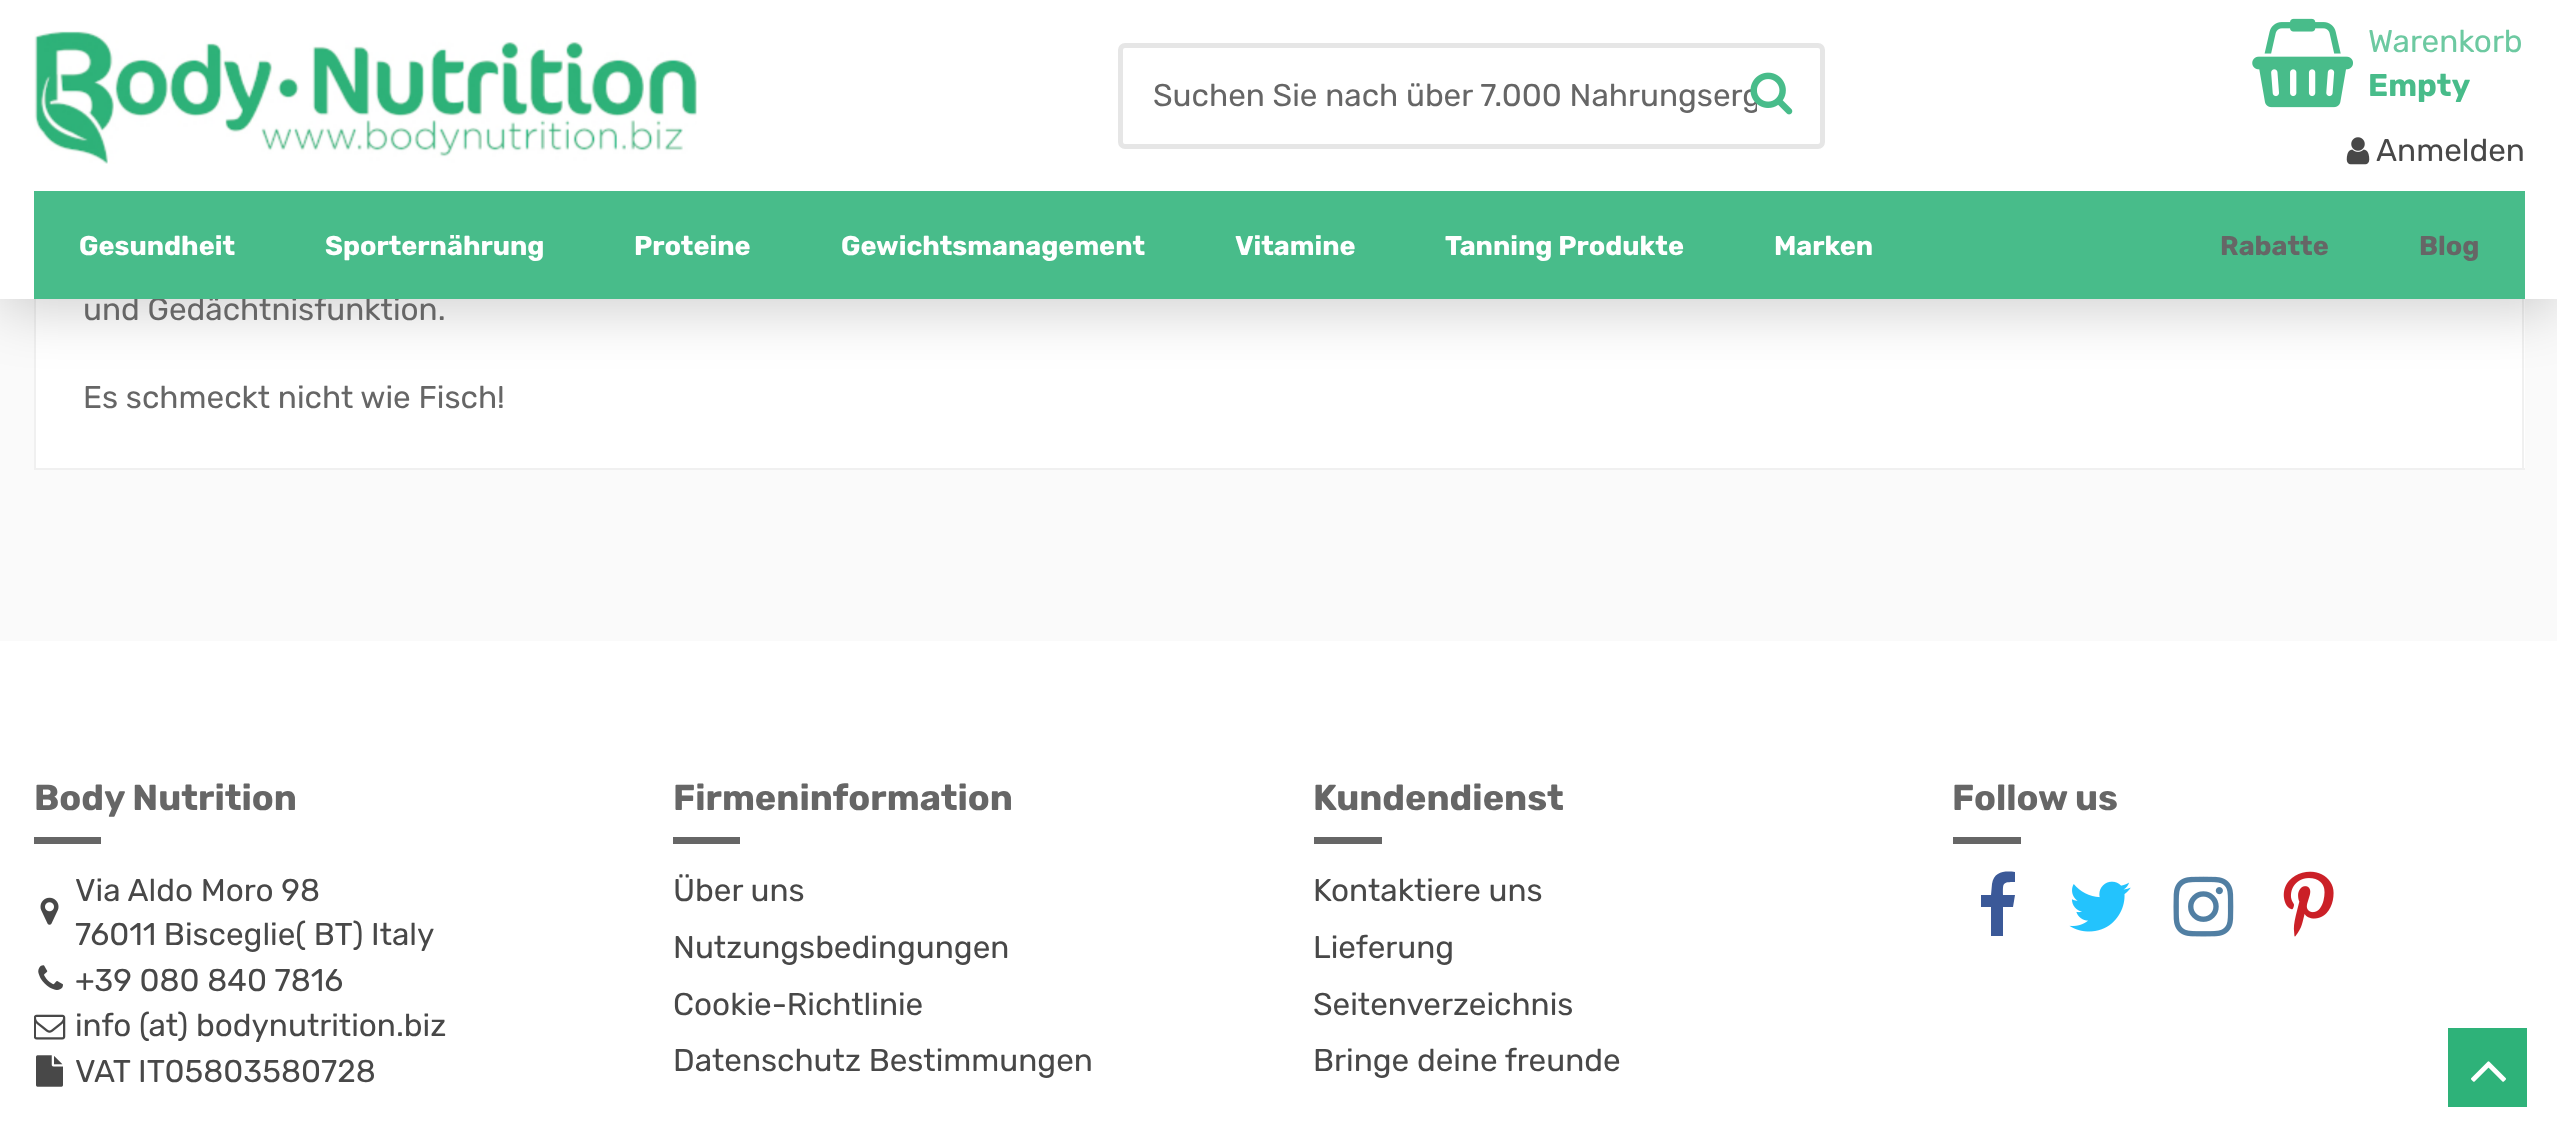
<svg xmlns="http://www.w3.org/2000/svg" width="2557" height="1137">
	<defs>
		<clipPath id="clip1"><rect x="1154" y="77" width="603" height="38" /></clipPath>
	</defs>
	<rect width="100%" height="100%" fill="#FAFAFA" />
	<rect x="36" y="299" width="2489" height="169" fill="#FFFFFF" />
	<rect x="2522" y="299" width="2" height="171" fill="#F0F0F0" />
	<rect x="34" y="468" width="2491" height="2" fill="#F0F0F0" />
	<rect x="34" y="299" width="2" height="171" fill="#F0F0F0" />
	<rect x="0" y="11" width="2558" height="300" fill="#000000" fill-opacity="0.18" filter="blur(28px)" />
	<text x="83" y="320" font-family="Rubik" font-size="31.5" fill="#666666">und Gedächtnisfunktion.</text>
	<rect x="0" y="0" width="2557" height="299" fill="#FFFFFF" />
	<image x="34" y="31" width="663" height="133" href="assets/img1.png" />
	<rect x="1120.5" y="45.5" width="702" height="101" rx="4.5" fill="none" stroke="#E6E6E6" stroke-width="5" />
	<g clip-path="url(#clip1)">
		<text x="1153" y="106" font-family="Rubik" font-size="31.5" fill="#666666">Suchen Sie nach über 7.000 Nahrungserg</text>
	</g>
	<image x="1750" y="72" width="43" height="43" href="assets/img2.png" />
	<image x="2252" y="18" width="101" height="90" href="assets/img3.png" />
	<text x="2368" y="52" font-family="Rubik" font-size="31.5" fill="#6DC9A1">Warenkorb</text>
	<text x="2368" y="96" font-family="Rubik" font-size="31.5" font-weight="700" fill="#48BC8A">Empty</text>
	<image x="2346" y="137" width="24" height="28" href="assets/img4.png" />
	<text x="2376" y="161" font-family="Rubik" font-size="31.5" fill="#484848">Anmelden</text>
	<rect x="34" y="191" width="2491" height="108" fill="#48BC8A" />
	<g font-family="Rubik" font-size="27" font-weight="700" fill="#FFFFFF">
		<text x="79" y="255">Gesundheit</text>
		<text x="325" y="255">Sporternährung</text>
		<text x="634" y="255">Proteine</text>
		<text x="841" y="255">Gewichtsmanagement</text>
		<text x="1235" y="255">Vitamine</text>
		<text x="1445" y="255">Tanning Produkte</text>
		<text x="1774" y="255">Marken</text>
	</g>
	<g font-family="Rubik" font-size="27" font-weight="700" fill="#666666">
		<text x="2220" y="255">Rabatte</text>
		<text x="2419" y="255">Blog</text>
	</g>
	<text x="83" y="408" font-family="Rubik" font-size="31.5" fill="#666666">Es schmeckt nicht wie Fisch!</text>
	<rect x="0" y="641" width="2557" height="496" fill="#FFFFFF" />
	<text x="34" y="810" font-family="Rubik" font-size="36" font-weight="700" fill="#666666">Body Nutrition</text>
	<rect x="34" y="837" width="67" height="7" fill="#666666" />
	<image x="40" y="897" width="19" height="28" href="assets/img5.png" />
	<g font-family="Rubik" font-size="31.5" fill="#484848">
		<text x="75" y="901">Via Aldo Moro 98</text>
		<text x="75" y="945">76011 Bisceglie( BT) Italy</text>
	</g>
	<image x="38" y="965" width="25" height="25" href="assets/img6.png" />
	<text x="75" y="991" font-family="Rubik" font-size="31.5" fill="#484848">+39 080 840 7816</text>
	<image x="34" y="1014" width="32" height="26" href="assets/img7.png" />
	<text x="75" y="1036" font-family="Rubik" font-size="31.5" fill="#484848">info (at) bodynutrition.biz</text>
	<image x="36" y="1055" width="27" height="32" href="assets/img8.png" />
	<text x="75" y="1082" font-family="Rubik" font-size="31.5" fill="#484848">VAT IT05803580728</text>
	<text x="673" y="810" font-family="Rubik" font-size="36" font-weight="700" fill="#666666">Firmeninformation</text>
	<rect x="673" y="837" width="67" height="7" fill="#666666" />
	<g font-family="Rubik" font-size="31.5" fill="#484848">
		<text x="673" y="901">Über uns</text>
		<text x="673" y="958">Nutzungsbedingungen</text>
		<text x="673" y="1015">Cookie-Richtlinie</text>
		<text x="673" y="1071">Datenschutz Bestimmungen</text>
	</g>
	<text x="1313" y="810" font-family="Rubik" font-size="36" font-weight="700" fill="#666666">Kundendienst</text>
	<rect x="1314" y="837" width="68" height="7" fill="#666666" />
	<g font-family="Rubik" font-size="31.5" fill="#484848">
		<text x="1313" y="901">Kontaktiere uns</text>
		<text x="1313" y="958">Lieferung</text>
		<text x="1313" y="1015">Seitenverzeichnis</text>
		<text x="1313" y="1071">Bringe deine freunde</text>
	</g>
	<text x="1952" y="810" font-family="Rubik" font-size="36" font-weight="700" fill="#666666">Follow us</text>
	<rect x="1953" y="837" width="68" height="7" fill="#666666" />
	<path d="M2015 872V882C2002 882 2003 883 2003 895H2015L2013 907H2003V936H1991V907H1981V895H1991L1992 884C1994 871 2005 871 2015 872Z" fill="#3B5998" />
	<image x="2069" y="881" width="62" height="51" href="assets/img9.png" />
	<image x="2173" y="876" width="61" height="61" href="assets/img10.png" />
	<image x="2283" y="871" width="51" height="66" href="assets/img11.png" />
	<rect x="2448" y="1028" width="79" height="79" fill="#2EB279" />
	<image x="2471" y="1061" width="35" height="21" href="assets/img12.png" />
</svg>
